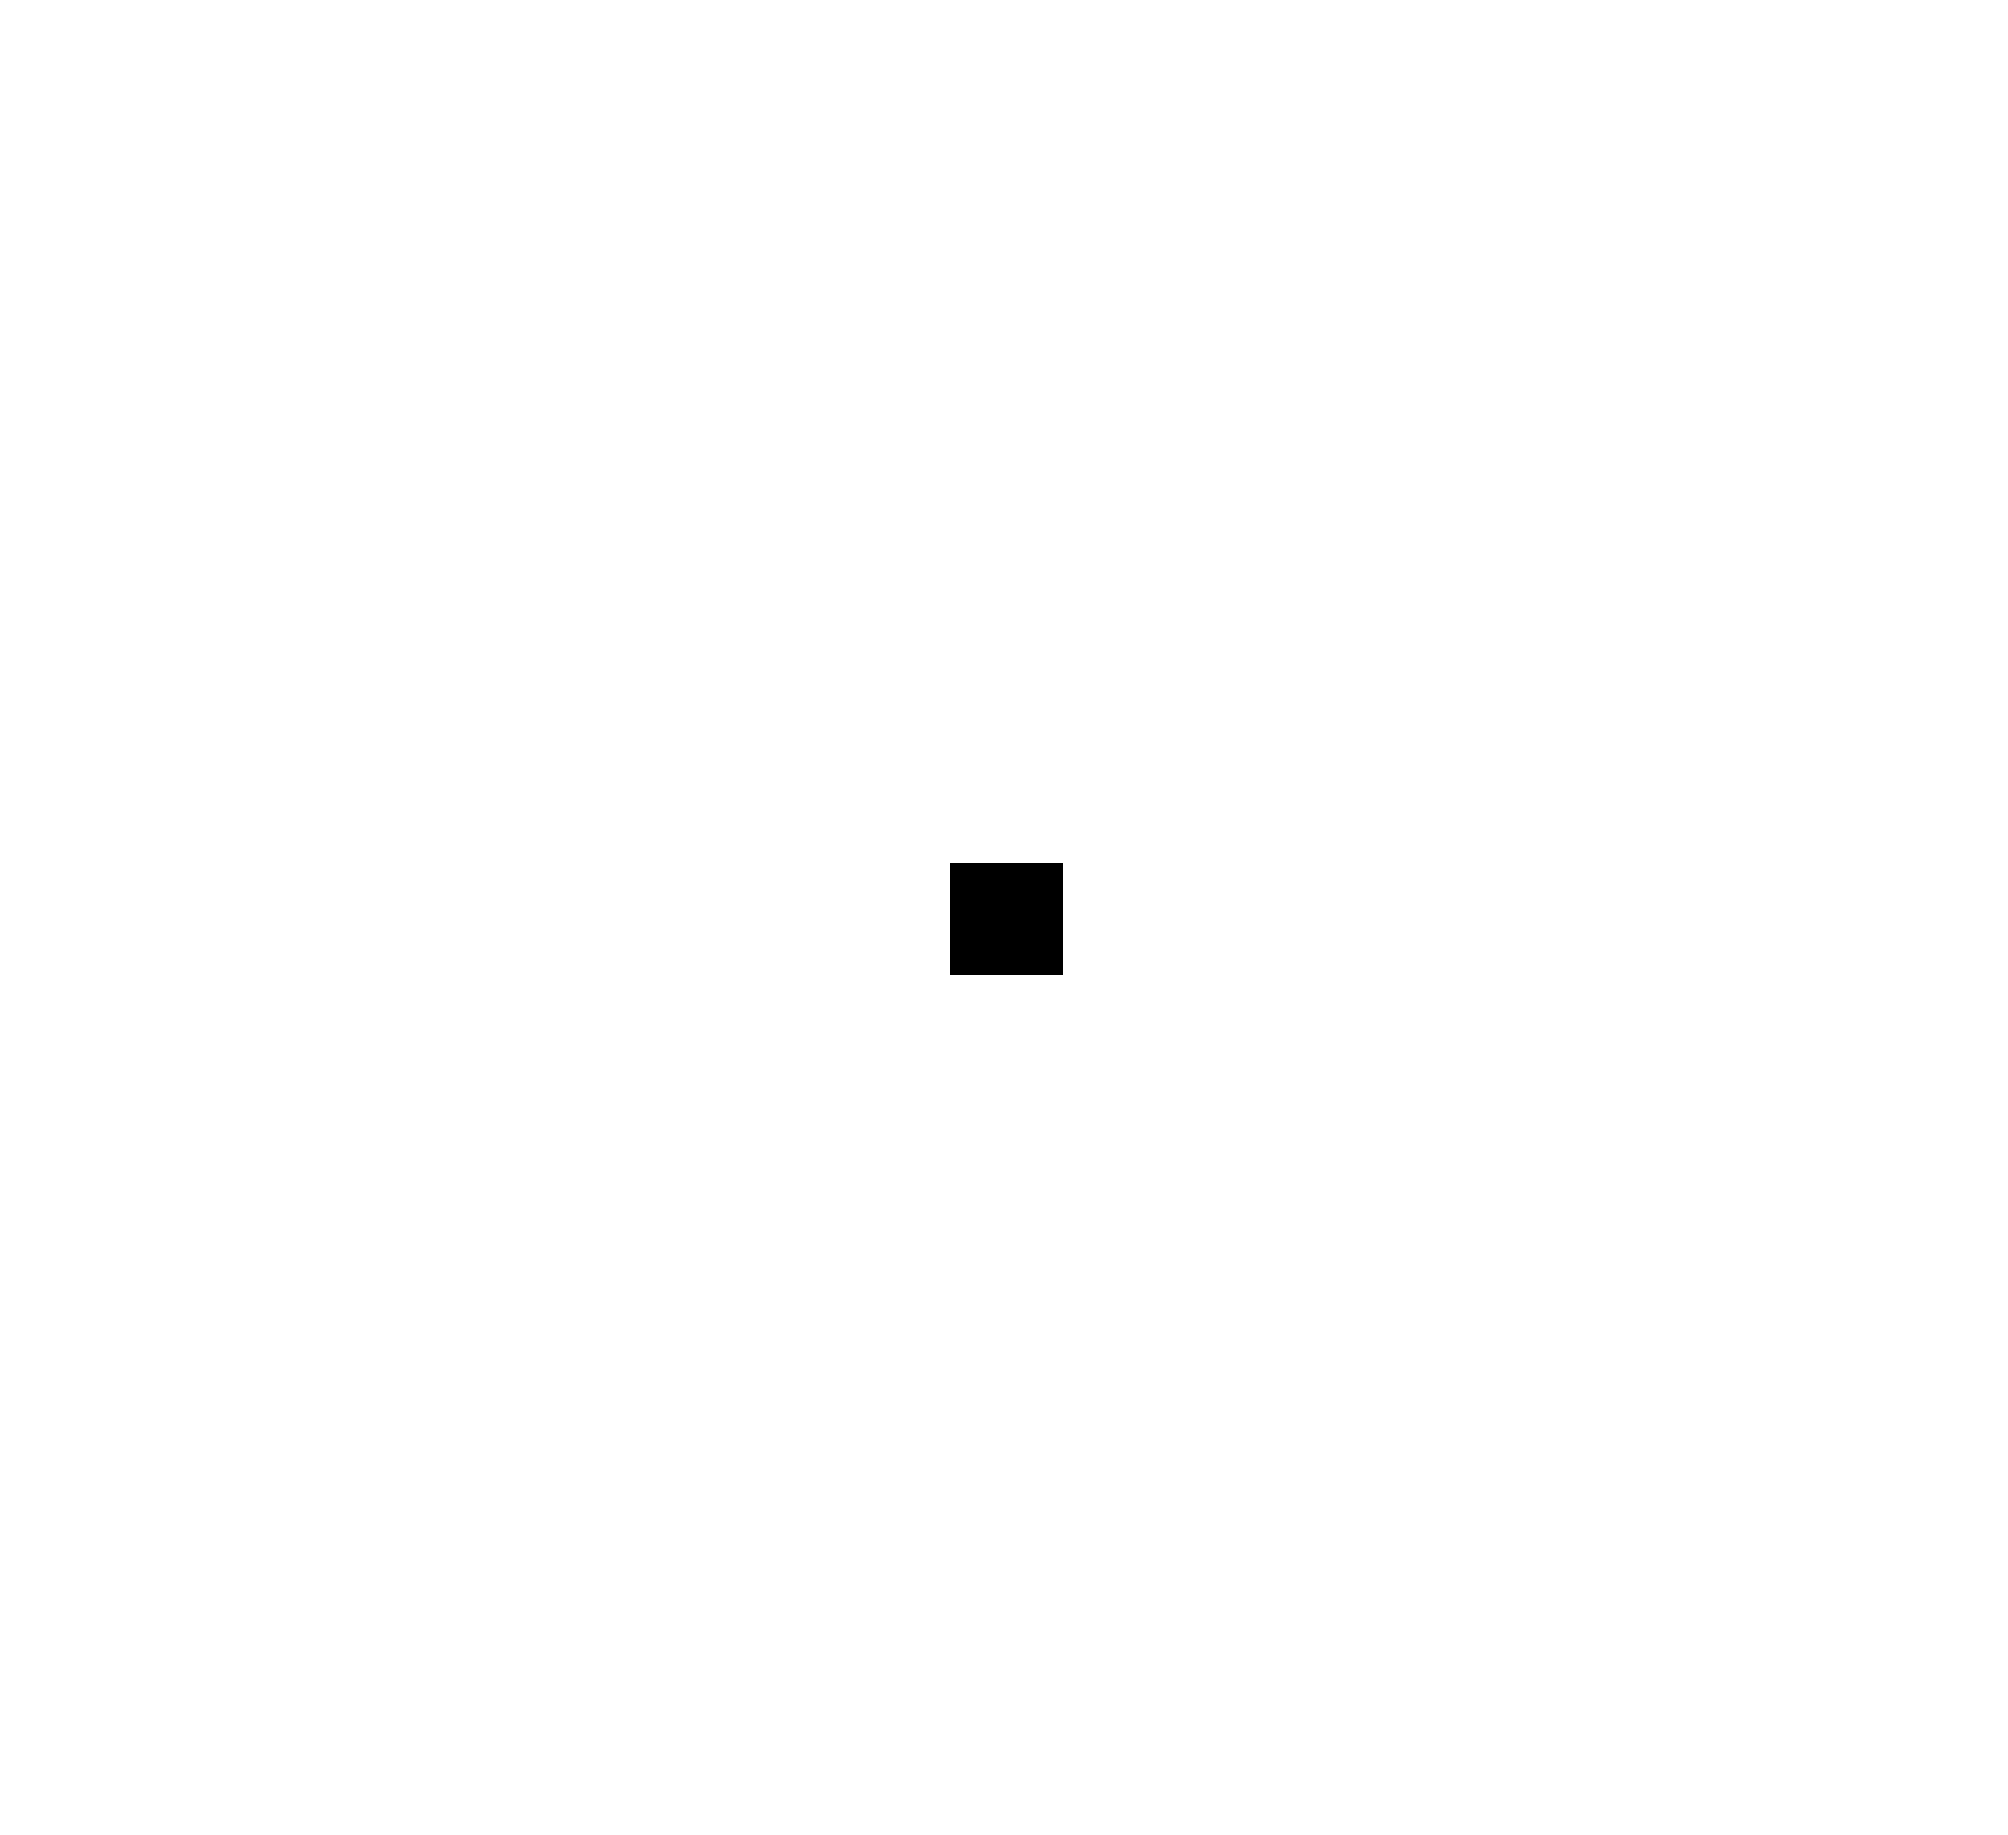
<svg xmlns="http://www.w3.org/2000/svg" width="2008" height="1835">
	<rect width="100%" height="100%" fill="#FFFFFF" />
	<rect x="950" y="863" width="113" height="112" fill="#000000" />
</svg>
